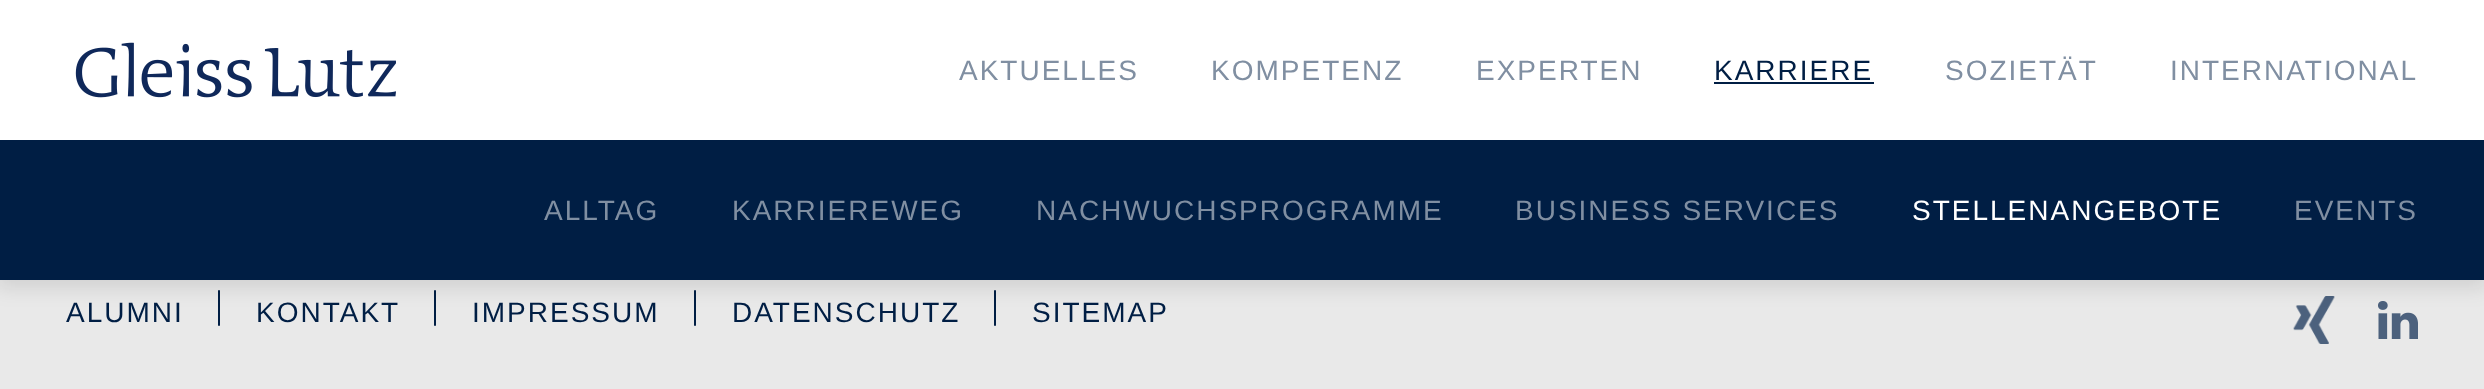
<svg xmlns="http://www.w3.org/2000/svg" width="2484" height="389">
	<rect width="100%" height="100%" fill="#E9E9E9" />
	<rect x="218" y="290" width="2" height="36" rx="1" fill="#001E44" />
	<rect x="434" y="290" width="2" height="36" rx="1" fill="#001E44" />
	<rect x="694" y="290" width="2" height="36" rx="1" fill="#001E44" />
	<rect x="994" y="290" width="2" height="36" rx="1" fill="#001E44" />
	<image x="2293" y="296" width="42" height="48" href="assets/img2.png" />
	<image x="2378" y="301" width="40" height="38" href="assets/img3.png" />
	<rect x="-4" y="0" width="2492" height="288" fill="#000000" fill-opacity="0.1" filter="blur(10px)" />
	<rect x="0" y="0" width="2484" height="140" fill="#FFFFFF" />
	<image x="75" y="42" width="321" height="56" href="assets/img1.png" />
	<g font-family="Liberation Sans" font-size="28" letter-spacing="2" fill="#808FA2">
		<text x="959" y="80">AKTUELLES</text>
		<text x="1211" y="80">KOMPETENZ</text>
		<text x="1476" y="80">EXPERTEN</text>
	</g>
	<text x="1714" y="80" font-family="Liberation Sans" font-size="28" letter-spacing="2" fill="#001E44">KARRIERE</text>
	<rect x="1714" y="82" width="160" height="2" fill="#001E44" />
	<g font-family="Liberation Sans" font-size="28" letter-spacing="2" fill="#808FA2">
		<text x="1945" y="80">SOZIETÄT</text>
		<text x="2170" y="80">INTERNATIONAL</text>
	</g>
	<rect x="0" y="140" width="2484" height="140" fill="#001E44" />
	<g font-family="Liberation Sans" font-size="28" letter-spacing="2" fill="#808FA2">
		<text x="544" y="220">ALLTAG</text>
		<text x="732" y="220">KARRIEREWEG</text>
		<text x="1036" y="220">NACHWUCHSPROGRAMME</text>
		<text x="1515" y="220">BUSINESS SERVICES</text>
	</g>
	<text x="1912" y="220" font-family="Liberation Sans" font-size="28" letter-spacing="2" fill="#FFFFFF">STELLENANGEBOTE</text>
	<text x="2294" y="220" font-family="Liberation Sans" font-size="28" letter-spacing="2" fill="#808FA2">EVENTS</text>
	<g font-family="Liberation Sans" font-size="28" letter-spacing="2" fill="#001E44">
		<text x="66" y="322">ALUMNI</text>
		<text x="256" y="322">KONTAKT</text>
		<text x="472" y="322">IMPRESSUM</text>
		<text x="732" y="322">DATENSCHUTZ</text>
		<text x="1032" y="322">SITEMAP</text>
	</g>
</svg>
